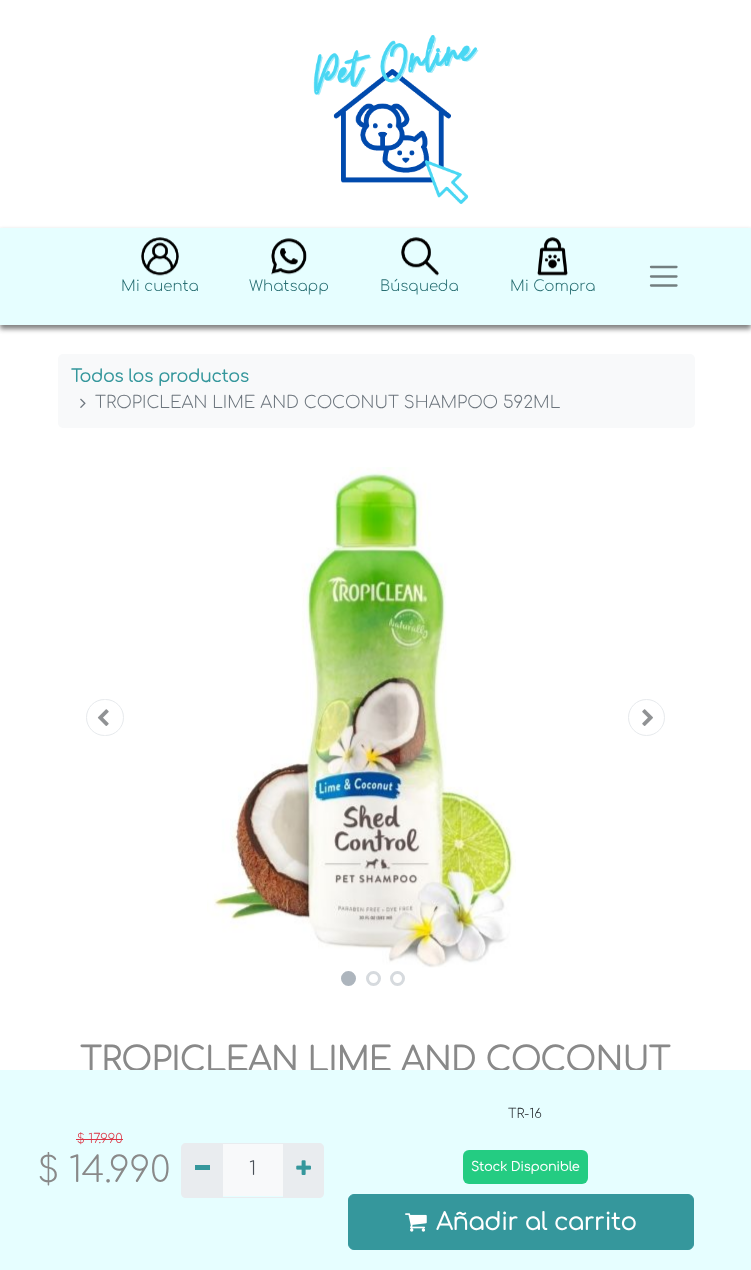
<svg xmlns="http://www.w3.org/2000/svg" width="751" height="1270">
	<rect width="100%" height="100%" fill="#FFFFFF" />
	<image x="313" y="35" width="166" height="169" href="assets/img1.png" />
	<rect x="0" y="231" width="751" height="98" fill="#808080" filter="blur(2.5px)" />
	<rect x="0" y="228" width="751" height="97" fill="#E6FEFF" />
	<image x="141" y="237" width="38" height="39" href="assets/img2.png" />
	<text x="121" y="291" font-family="Comfortaa" font-size="15" font-weight="300" fill="#276E72">Mi cuenta</text>
	<image x="271" y="238" width="36" height="37" href="assets/img3.png" />
	<text x="249" y="291" font-family="Comfortaa" font-size="15" font-weight="300" fill="#276E72">Whatsapp</text>
	<image x="401" y="237" width="38" height="39" href="assets/img4.png" />
	<text x="380" y="291" font-family="Comfortaa" font-size="15" font-weight="300" fill="#276E72">Búsqueda</text>
	<image x="537" y="237" width="31" height="39" href="assets/img5.png" />
	<text x="510" y="291" font-family="Comfortaa" font-size="15" font-weight="300" fill="#276E72">Mi Compra</text>
	<path d="M651 267H676.5M651 276.5H676.5M651 285.5H676.5" fill="none" stroke="#737F80" stroke-width="2.3" stroke-linecap="round" />
	<rect x="58" y="354" width="637" height="74" rx="5" fill="#F8F9FA" />
	<text x="71" y="382" font-family="Comfortaa" font-size="16.9" font-weight="700" fill="#35979C">Todos los productos</text>
	<image x="80" y="398" width="6" height="10" href="assets/img6.png" />
	<text x="95" y="408" font-family="Comfortaa" font-size="16.9" font-weight="300" fill="#6C757D">TROPICLEAN LIME AND COCONUT SHAMPOO 592ML</text>
	<rect x="86.5" y="699.5" width="37" height="36" rx="18" fill="none" stroke="#E7EAED" />
	<image x="97" y="709" width="12" height="17" href="assets/img7.png" />
	<image x="207" y="467" width="309" height="501" href="assets/img8.png" />
	<circle cx="646.5" cy="717.5" r="18" fill="none" stroke="#E7EAED" />
	<image x="642" y="709" width="11" height="17" href="assets/img9.png" />
	<circle cx="348.5" cy="978.5" r="6" fill="#ADB5BD" stroke="#ADB5BD" stroke-width="3" />
	<circle cx="373.5" cy="978.5" r="6" fill="none" stroke="#D6DADE" stroke-width="3" />
	<circle cx="397.5" cy="978.5" r="6" fill="none" stroke="#D6DADE" stroke-width="3" />
	<text x="80" y="1071" font-family="Comfortaa" font-size="32.8" font-weight="700" fill="#898989">TROPICLEAN LIME AND COCONUT</text>
	<rect x="0" y="1070" width="751" height="200" fill="#E6FEFF" />
	<text x="77" y="1143" font-family="Comfortaa" font-size="13" font-weight="300" fill="#DC3545">$ 17.990</text>
	<rect x="76" y="1139" width="47" height="1" fill="#DC3545" />
	<text x="38" y="1182" font-family="Comfortaa" font-size="35.5" font-weight="300" fill="#898989">$ 14.990</text>
	<rect x="223" y="1144" width="60" height="52" fill="#F8F9FA" />
	<rect x="221.5" y="1143.5" width="62" height="54" fill="none" stroke="#E9ECEF" />
	<path d="M186 1143H223V1198H186C183 1198 181 1196 181 1193V1148C181 1145 183 1143 186 1143Z" fill="#E9ECEF" />
	<rect x="195" y="1165" width="15" height="5" fill="#35979C" />
	<text x="249" y="1175" font-family="Comfortaa" font-size="19" font-weight="300" fill="#495057">1</text>
	<path d="M283 1143H319C322 1143 324 1145 324 1148V1193C324 1196 322 1198 319 1198H283Z" fill="#E9ECEF" />
	<image x="296" y="1160" width="15" height="15" href="assets/img10.png" />
	<text x="508" y="1118" font-family="Comfortaa" font-size="13" font-weight="300" fill="#212529">TR-16</text>
	<rect x="463" y="1150" width="125" height="34" rx="6" fill="#24CC82" />
	<text x="471" y="1171" font-family="Comfortaa" font-size="12.5" font-weight="700" fill="#FFFFFF">Stock Disponible</text>
	<rect x="348.5" y="1194.5" width="345" height="55" rx="5.5" fill="#35979C" stroke="#35979C" />
	<image x="405" y="1213" width="22" height="19" href="assets/img11.png" />
	<text x="436" y="1230" font-family="Comfortaa" font-size="23.5" font-weight="700" fill="#FFFFFF">Añadir al carrito</text>
</svg>
